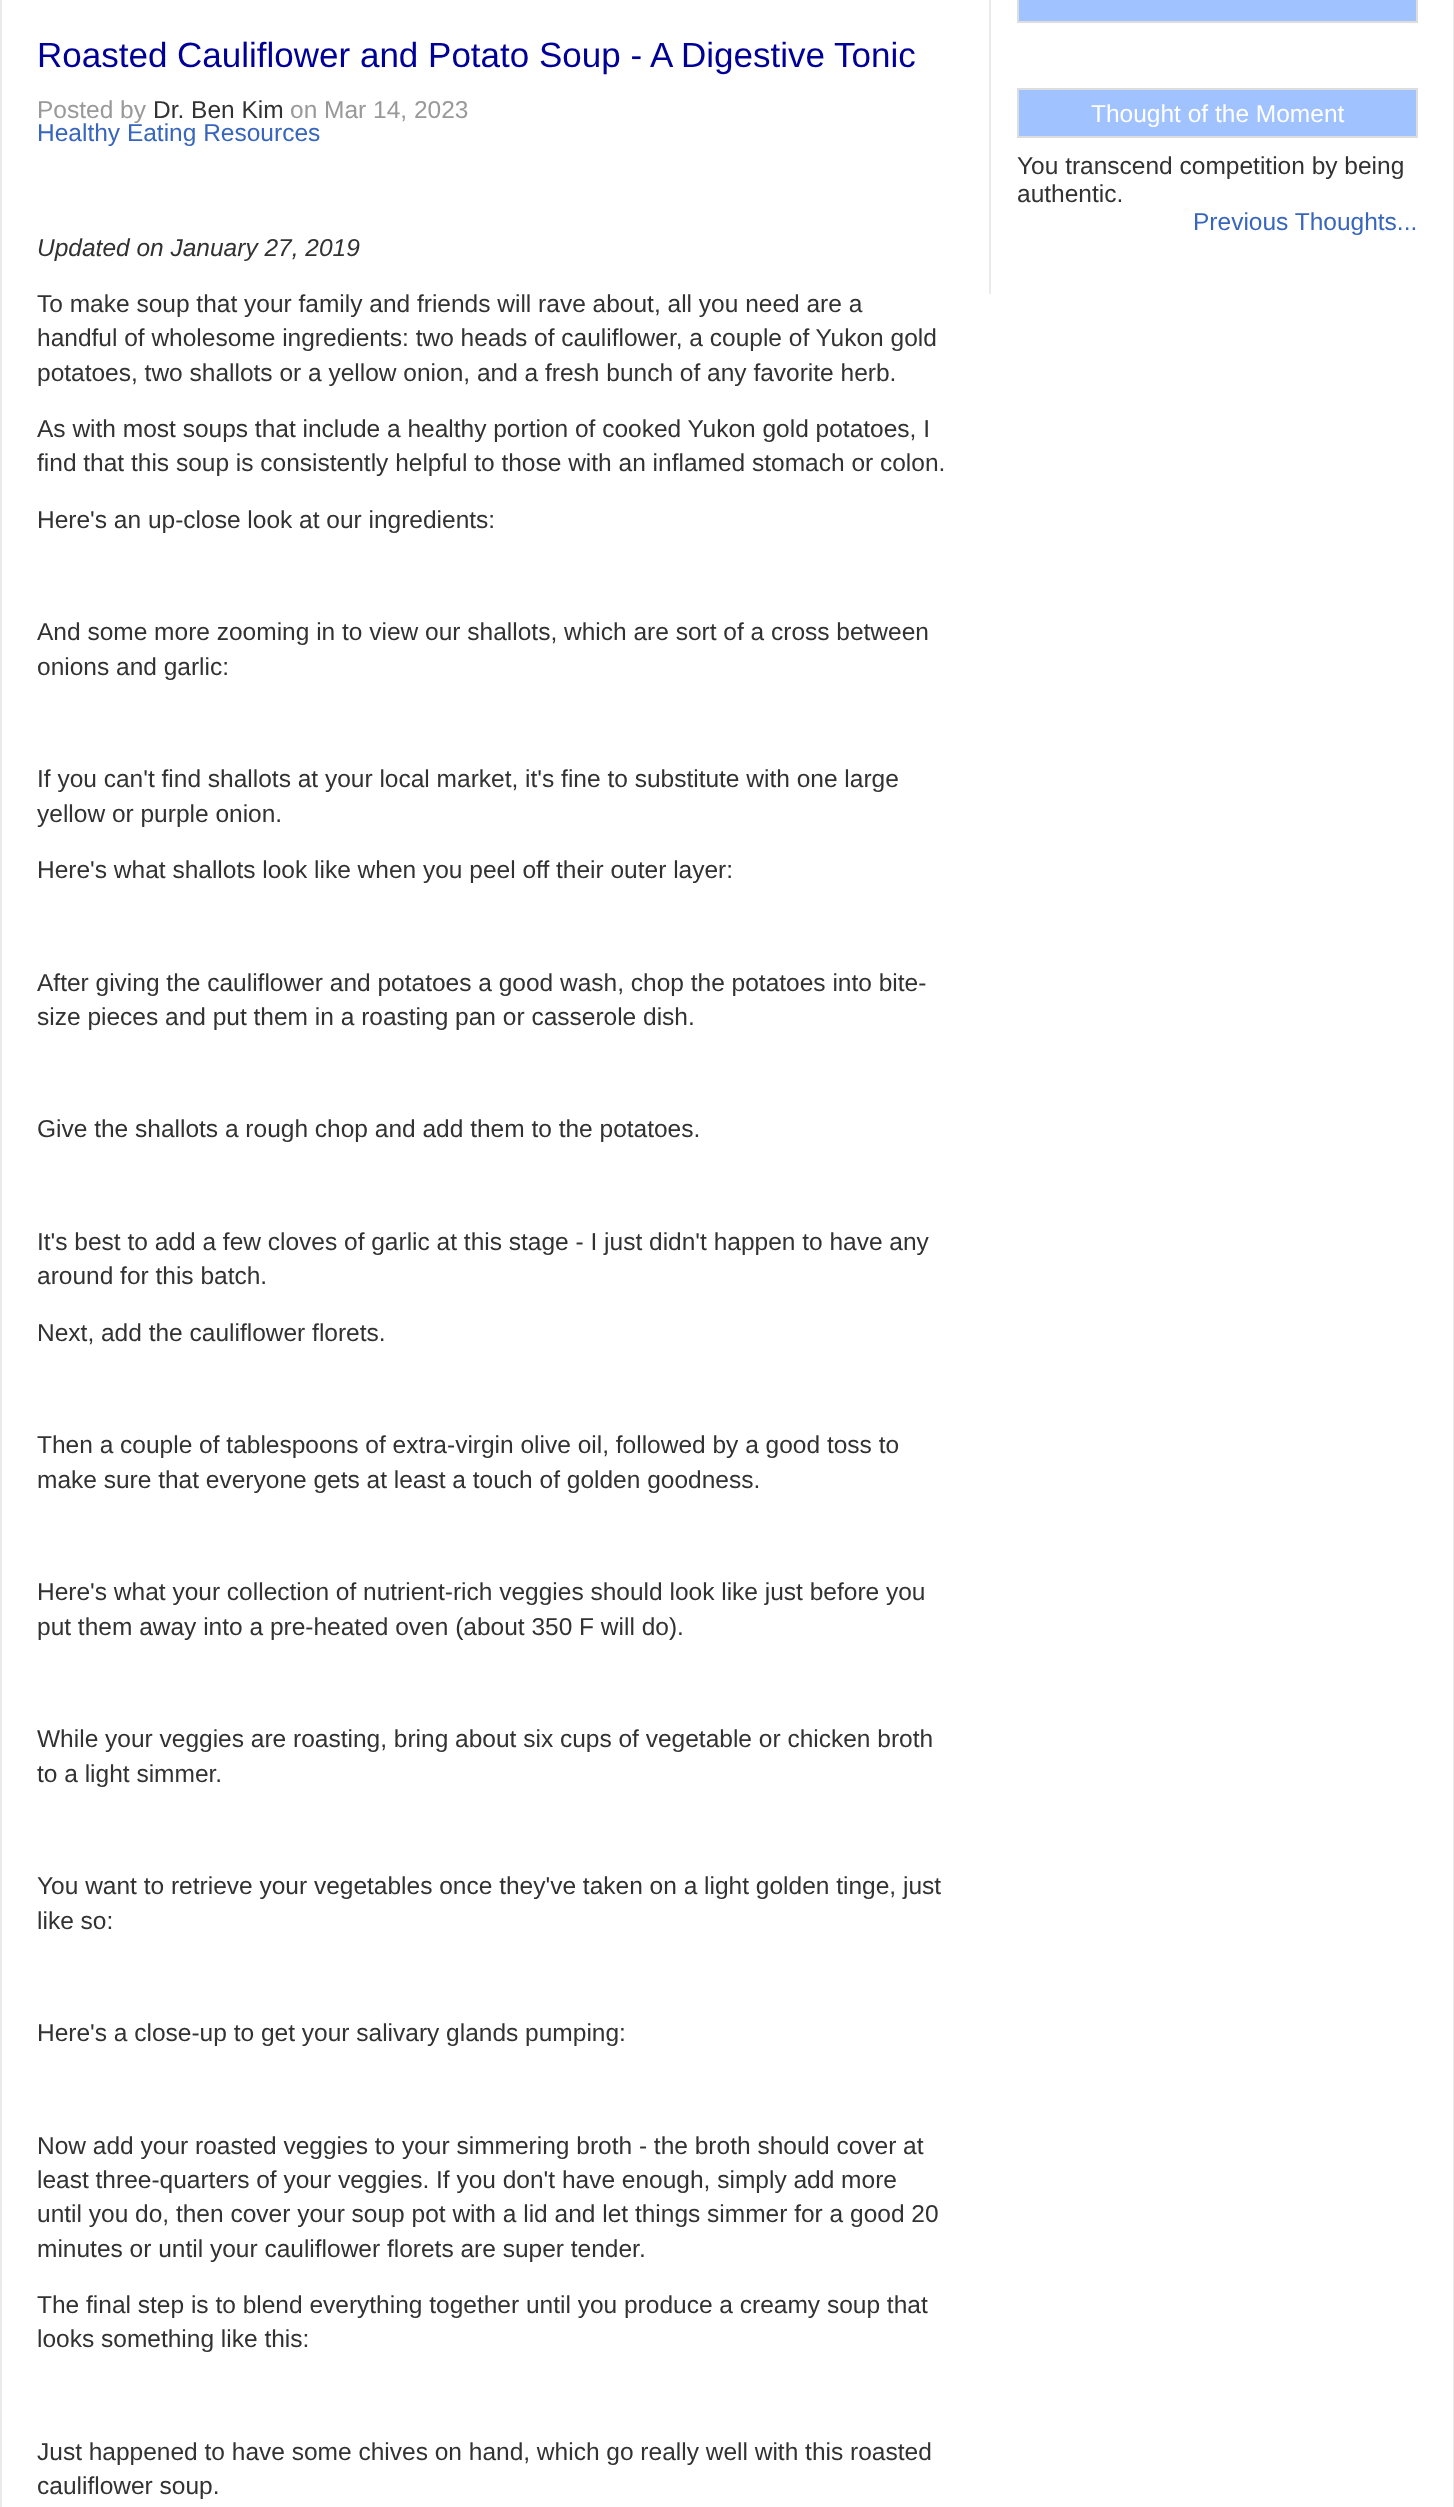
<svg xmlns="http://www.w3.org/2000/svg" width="1454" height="2507">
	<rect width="100%" height="100%" fill="#FFFFFF" />
	<rect x="1453" y="0" width="1" height="2507" fill="#EAEAEA" />
	<rect x="0" y="0" width="2" height="2507" fill="#EAEAEA" />
	<text x="37" y="67" font-family="Liberation Sans" font-size="35" fill="#000099">Roasted Cauliflower and Potato Soup - A Digestive Tonic</text>
	<text x="37" y="118" font-family="Liberation Sans" font-size="24.5" fill="#999999">Posted by</text>
	<text x="153" y="118" font-family="Liberation Sans" font-size="24.5" fill="#323232">Dr. Ben Kim</text>
	<text x="290" y="118" font-family="Liberation Sans" font-size="24.5" fill="#999999">on Mar 14, 2023</text>
	<text x="37" y="141" font-family="Liberation Sans" font-size="24.5" fill="#3866BC">Healthy Eating Resources</text>
	<text x="37" y="256" font-family="Liberation Sans" font-size="24.5" font-style="italic" fill="#323232">Updated on January 27, 2019</text>
	<g font-family="Liberation Sans" font-size="24.5" fill="#323232">
		<text x="37" y="312">To make soup that your family and friends will rave about, all you need are a</text>
		<text x="37" y="346">handful of wholesome ingredients: two heads of cauliflower, a couple of Yukon gold</text>
		<text x="37" y="381">potatoes, two shallots or a yellow onion, and a fresh bunch of any favorite herb.</text>
		<text x="37" y="437">As with most soups that include a healthy portion of cooked Yukon gold potatoes, I</text>
		<text x="37" y="471">find that this soup is consistently helpful to those with an inflamed stomach or colon.</text>
		<text x="37" y="528">Here's an up-close look at our ingredients:</text>
		<text x="37" y="640">And some more zooming in to view our shallots, which are sort of a cross between</text>
		<text x="37" y="675">onions and garlic:</text>
		<text x="37" y="787">If you can't find shallots at your local market, it's fine to substitute with one large</text>
		<text x="37" y="822">yellow or purple onion.</text>
		<text x="37" y="878">Here's what shallots look like when you peel off their outer layer:</text>
		<text x="37" y="991">After giving the cauliflower and potatoes a good wash, chop the potatoes into bite-</text>
		<text x="37" y="1025">size pieces and put them in a roasting pan or casserole dish.</text>
		<text x="37" y="1137">Give the shallots a rough chop and add them to the potatoes.</text>
		<text x="37" y="1250">It's best to add a few cloves of garlic at this stage - I just didn't happen to have any</text>
		<text x="37" y="1284">around for this batch.</text>
		<text x="37" y="1341">Next, add the cauliflower florets.</text>
		<text x="37" y="1453">Then a couple of tablespoons of extra-virgin olive oil, followed by a good toss to</text>
		<text x="37" y="1488">make sure that everyone gets at least a touch of golden goodness.</text>
		<text x="37" y="1600">Here's what your collection of nutrient-rich veggies should look like just before you</text>
		<text x="37" y="1635">put them away into a pre-heated oven (about 350 F will do).</text>
		<text x="37" y="1747">While your veggies are roasting, bring about six cups of vegetable or chicken broth</text>
		<text x="37" y="1782">to a light simmer.</text>
		<text x="37" y="1894">You want to retrieve your vegetables once they've taken on a light golden tinge, just</text>
		<text x="37" y="1929">like so:</text>
		<text x="37" y="2041">Here's a close-up to get your salivary glands pumping:</text>
		<text x="37" y="2154">Now add your roasted veggies to your simmering broth - the broth should cover at</text>
		<text x="37" y="2188">least three-quarters of your veggies. If you don't have enough, simply add more</text>
		<text x="37" y="2222">until you do, then cover your soup pot with a lid and let things simmer for a good 20</text>
		<text x="37" y="2257">minutes or until your cauliflower florets are super tender.</text>
		<text x="37" y="2313">The final step is to blend everything together until you produce a creamy soup that</text>
		<text x="37" y="2347">looks something like this:</text>
		<text x="37" y="2460">Just happened to have some chives on hand, which go really well with this roasted</text>
		<text x="37" y="2494">cauliflower soup.</text>
	</g>
	<rect x="989" y="0" width="2" height="294" fill="#EAEAEA" />
	<rect x="1018" y="-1" width="399" height="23" fill="#A0C2FF" stroke="#DDDDDD" stroke-width="2" />
	<rect x="1018" y="89" width="399" height="48" fill="#A0C2FF" stroke="#DDDDDD" stroke-width="2" />
	<text x="1091" y="122" font-family="Liberation Sans" font-size="24.5" fill="#FFFFFF">Thought of the Moment</text>
	<g font-family="Liberation Sans" font-size="24.5" fill="#323232">
		<text x="1017" y="174">You transcend competition by being</text>
		<text x="1017" y="202">authentic.</text>
	</g>
	<text x="1193" y="230" font-family="Liberation Sans" font-size="24.5" fill="#3866BC">Previous Thoughts...</text>
</svg>
